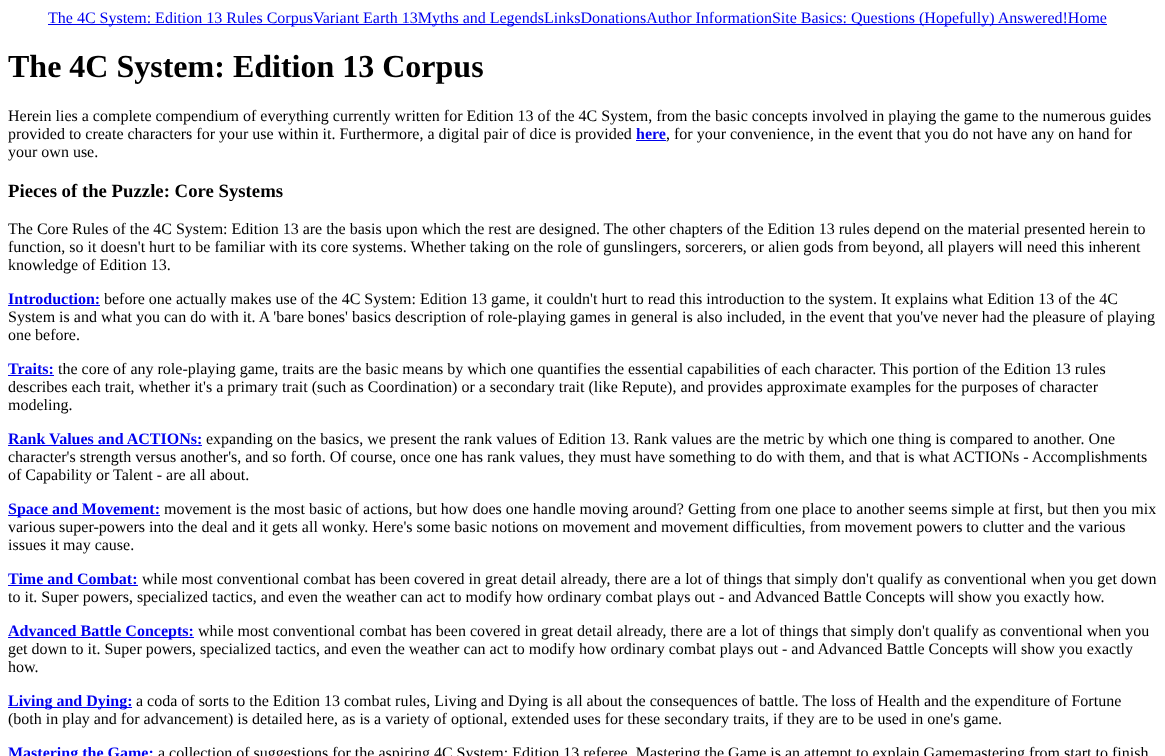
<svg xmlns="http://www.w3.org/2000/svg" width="1165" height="756">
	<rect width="100%" height="100%" fill="#FFFFFF" />
	<rect x="48" y="24" width="1059" height="1" fill="#0000EE" />
	<text x="48" y="23" font-family="Liberation Serif" font-size="16" fill="#0000EE">The 4C System: Edition 13 Rules CorpusVariant Earth 13Myths and LegendsLinksDonationsAuthor InformationSite Basics: Questions (Hopefully) Answered!Home</text>
	<text x="8" y="77" font-family="Liberation Serif" font-size="32" font-weight="700" fill="#000000">The 4C System: Edition 13 Corpus</text>
	<g font-family="Liberation Serif" font-size="16" fill="#000000">
		<text x="8" y="121">Herein lies a complete compendium of everything currently written for Edition 13 of the 4C System, from the basic concepts involved in playing the game to the numerous guides</text>
		<text x="8" y="139">provided to create characters for your use within it. Furthermore, a digital pair of dice is provided</text>
	</g>
	<text x="636" y="139" font-family="Liberation Serif" font-size="16" font-weight="700" fill="#0000EE">here</text>
	<rect x="636" y="140" width="30" height="1" fill="#0000EE" />
	<g font-family="Liberation Serif" font-size="16" fill="#000000">
		<text x="666" y="139">, for your convenience, in the event that you do not have any on hand for</text>
		<text x="8" y="157">your own use.</text>
	</g>
	<text x="8" y="197" font-family="Liberation Serif" font-size="18.75" font-weight="700" fill="#000000">Pieces of the Puzzle: Core Systems</text>
	<g font-family="Liberation Serif" font-size="16" fill="#000000">
		<text x="8" y="234">The Core Rules of the 4C System: Edition 13 are the basis upon which the rest are designed. The other chapters of the Edition 13 rules depend on the material presented herein to</text>
		<text x="8" y="252">function, so it doesn't hurt to be familiar with its core systems. Whether taking on the role of gunslingers, sorcerers, or alien gods from beyond, all players will need this inherent</text>
		<text x="8" y="270">knowledge of Edition 13.</text>
	</g>
	<text x="8" y="304" font-family="Liberation Serif" font-size="16" font-weight="700" fill="#0000EE">Introduction:</text>
	<rect x="8" y="305" width="92" height="1" fill="#0000EE" />
	<g font-family="Liberation Serif" font-size="16" fill="#000000">
		<text x="104" y="304">before one actually makes use of the 4C System: Edition 13 game, it couldn't hurt to read this introduction to the system. It explains what Edition 13 of the 4C</text>
		<text x="8" y="322">System is and what you can do with it. A 'bare bones' basics description of role-playing games in general is also included, in the event that you've never had the pleasure of playing</text>
		<text x="8" y="340">one before.</text>
	</g>
	<text x="8" y="374" font-family="Liberation Serif" font-size="16" font-weight="700" fill="#0000EE">Traits:</text>
	<rect x="8" y="375" width="46" height="1" fill="#0000EE" />
	<g font-family="Liberation Serif" font-size="16" fill="#000000">
		<text x="58" y="374">the core of any role-playing game, traits are the basic means by which one quantifies the essential capabilities of each character. This portion of the Edition 13 rules</text>
		<text x="8" y="392">describes each trait, whether it's a primary trait (such as Coordination) or a secondary trait (like Repute), and provides approximate examples for the purposes of character</text>
		<text x="8" y="410">modeling.</text>
	</g>
	<text x="8" y="444" font-family="Liberation Serif" font-size="16" font-weight="700" fill="#0000EE">Rank Values and ACTIONs:</text>
	<rect x="8" y="445" width="194" height="1" fill="#0000EE" />
	<g font-family="Liberation Serif" font-size="16" fill="#000000">
		<text x="206" y="444">expanding on the basics, we present the rank values of Edition 13. Rank values are the metric by which one thing is compared to another. One</text>
		<text x="8" y="462">character's strength versus another's, and so forth. Of course, once one has rank values, they must have something to do with them, and that is what ACTIONs - Accomplishments</text>
		<text x="8" y="480">of Capability or Talent - are all about.</text>
	</g>
	<rect x="8" y="515" width="152" height="1" fill="#0000EE" />
	<text x="8" y="514" font-family="Liberation Serif" font-size="16" font-weight="700" fill="#0000EE">Space and Movement:</text>
	<g font-family="Liberation Serif" font-size="16" fill="#000000">
		<text x="164" y="514">movement is the most basic of actions, but how does one handle moving around? Getting from one place to another seems simple at first, but then you mix</text>
		<text x="8" y="532">various super-powers into the deal and it gets all wonky. Here's some basic notions on movement and movement difficulties, from movement powers to clutter and the various</text>
		<text x="8" y="550">issues it may cause.</text>
	</g>
	<text x="8" y="584" font-family="Liberation Serif" font-size="16" font-weight="700" fill="#0000EE">Time and Combat:</text>
	<rect x="8" y="585" width="130" height="1" fill="#0000EE" />
	<g font-family="Liberation Serif" font-size="16" fill="#000000">
		<text x="142" y="584">while most conventional combat has been covered in great detail already, there are a lot of things that simply don't qualify as conventional when you get down</text>
		<text x="8" y="602">to it. Super powers, specialized tactics, and even the weather can act to modify how ordinary combat plays out - and Advanced Battle Concepts will show you exactly how.</text>
	</g>
	<rect x="8" y="637" width="186" height="1" fill="#0000EE" />
	<text x="8" y="636" font-family="Liberation Serif" font-size="16" font-weight="700" fill="#0000EE">Advanced Battle Concepts:</text>
	<g font-family="Liberation Serif" font-size="16" fill="#000000">
		<text x="198" y="636">while most conventional combat has been covered in great detail already, there are a lot of things that simply don't qualify as conventional when you</text>
		<text x="8" y="654">get down to it. Super powers, specialized tactics, and even the weather can act to modify how ordinary combat plays out - and Advanced Battle Concepts will show you exactly</text>
		<text x="8" y="672">how.</text>
	</g>
	<rect x="8" y="707" width="124" height="1" fill="#0000EE" />
	<text x="8" y="706" font-family="Liberation Serif" font-size="16" font-weight="700" fill="#0000EE">Living and Dying:</text>
	<g font-family="Liberation Serif" font-size="16" fill="#000000">
		<text x="136" y="706">a coda of sorts to the Edition 13 combat rules, Living and Dying is all about the consequences of battle. The loss of Health and the expenditure of Fortune</text>
		<text x="8" y="724">(both in play and for advancement) is detailed here, as is a variety of optional, extended uses for these secondary traits, if they are to be used in one's game.</text>
	</g>
	<text x="8" y="758" font-family="Liberation Serif" font-size="16" font-weight="700" fill="#0000EE">Mastering the Game:</text>
	<text x="158" y="758" font-family="Liberation Serif" font-size="16" fill="#000000">a collection of suggestions for the aspiring 4C System: Edition 13 referee, Mastering the Game is an attempt to explain Gamemastering from start to finish</text>
</svg>
